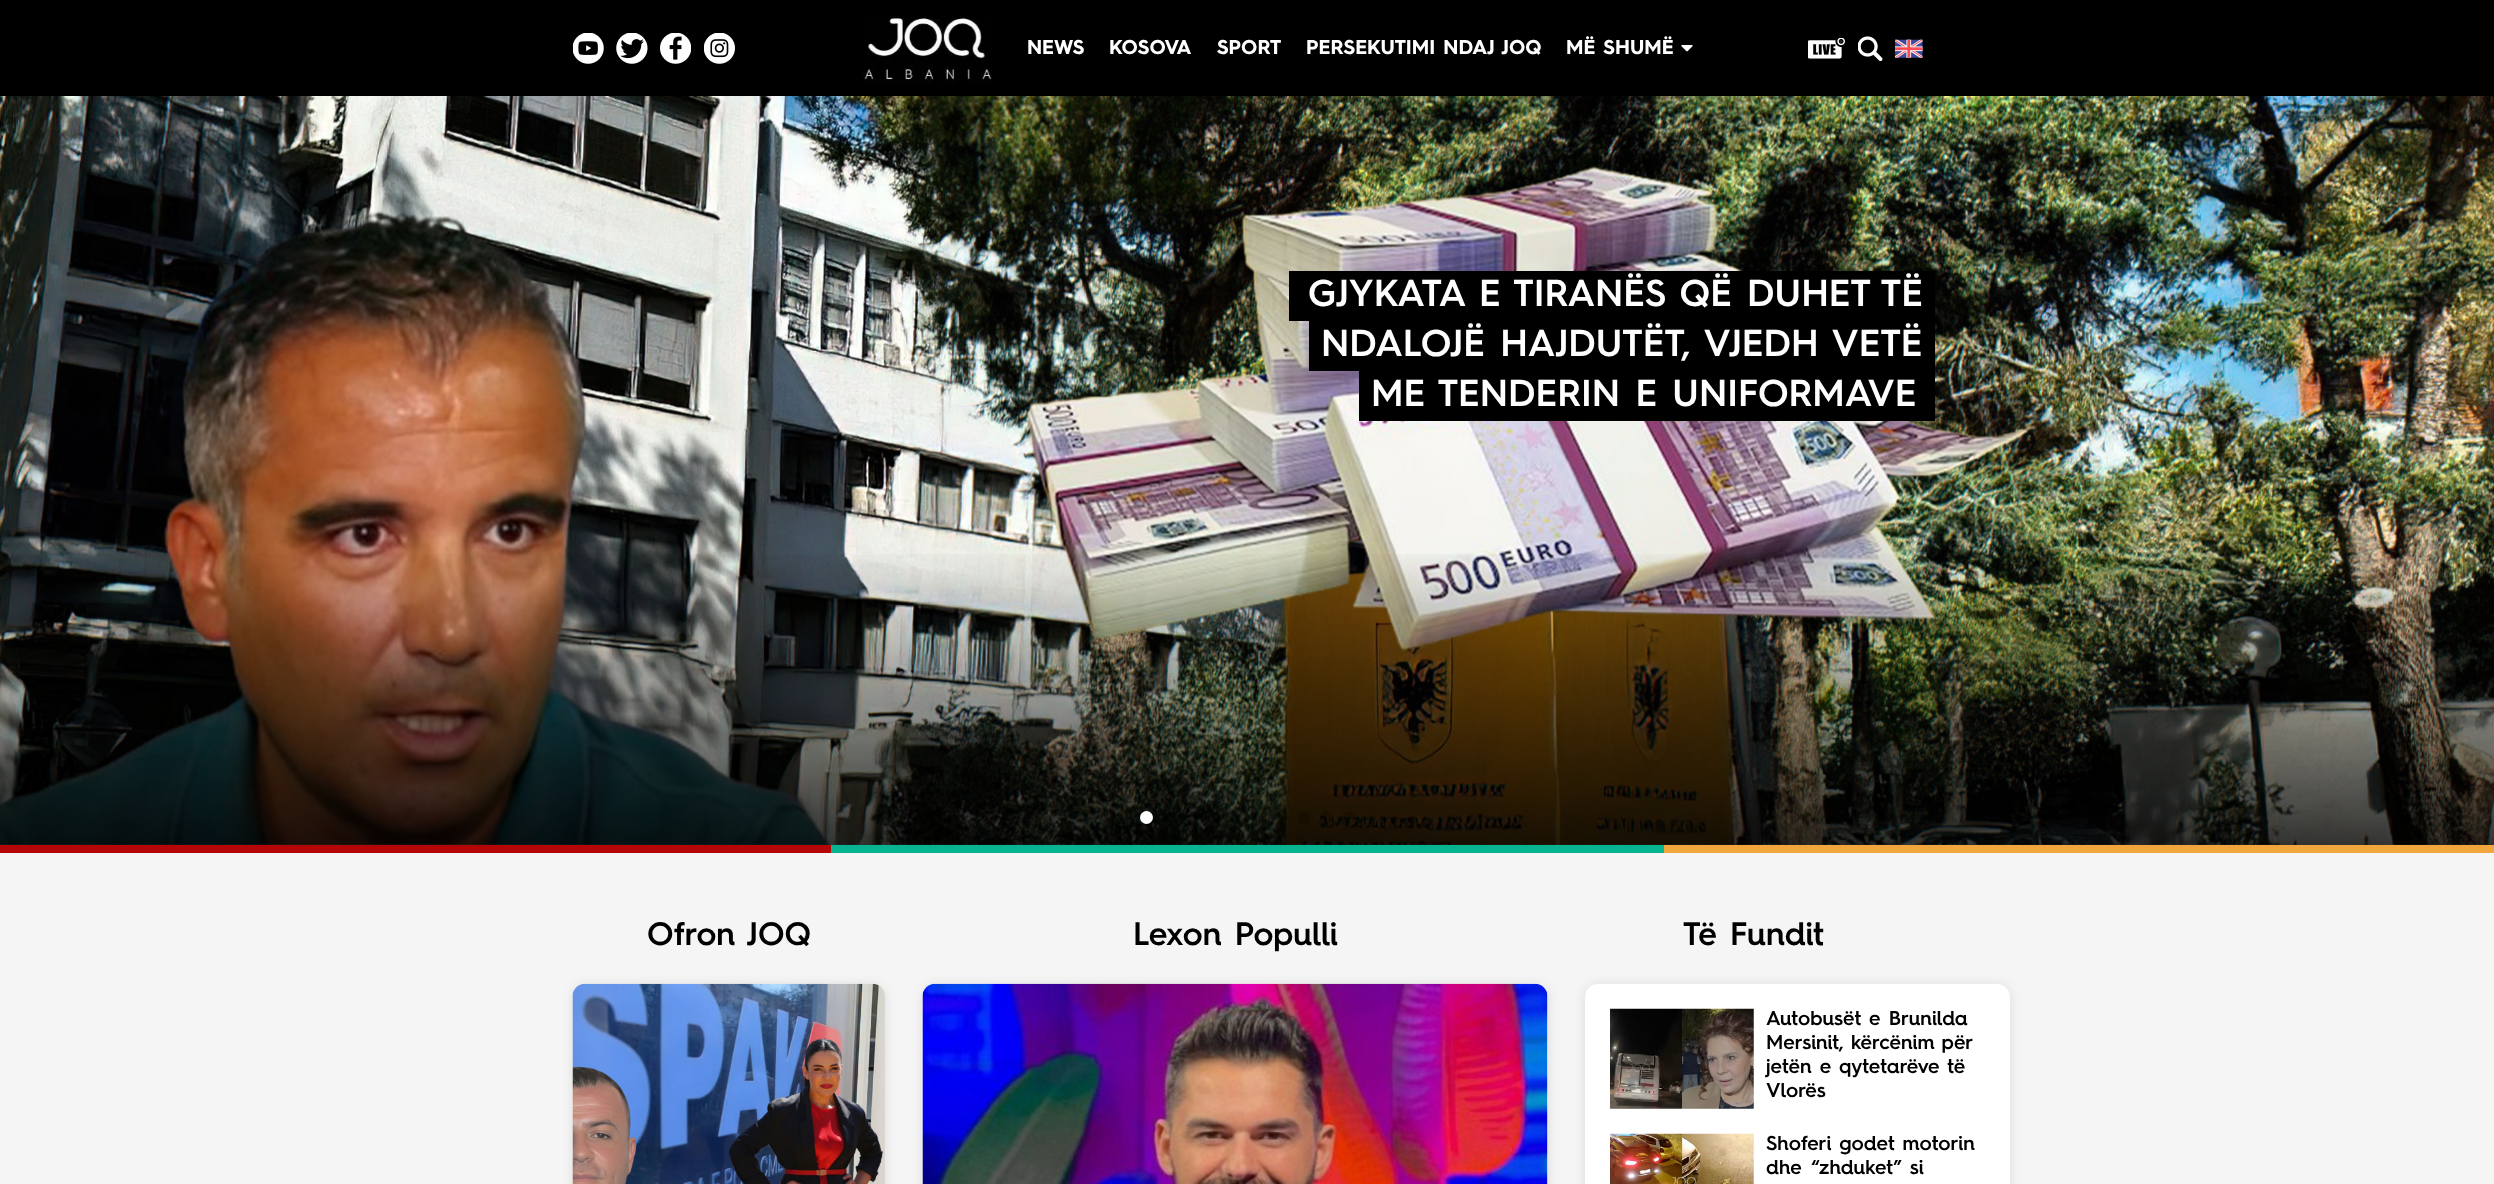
<svg xmlns="http://www.w3.org/2000/svg" width="2494" height="1184">
	<defs>
		<linearGradient id="g1" gradientUnits="userSpaceOnUse" x1="1248" y1="96" x2="1248" y2="845"><stop offset="0.6" stop-color="#000000" stop-opacity="0" /><stop offset="1" stop-color="#000000" stop-opacity="0.79" /></linearGradient>
	</defs>
	<rect width="100%" height="100%" fill="#F5F5F5" />
	<rect x="0" y="0" width="2494" height="96" fill="#000000" />
	<image x="573" y="33" width="31" height="31" href="assets/img1.png" />
	<image x="616" y="33" width="32" height="31" href="assets/img2.png" />
	<image x="660" y="33" width="31" height="31" href="assets/img3.png" />
	<image x="704" y="33" width="31" height="31" href="assets/img4.png" />
	<image x="862" y="15" width="130" height="69" href="assets/img5.png" />
	<g font-family="'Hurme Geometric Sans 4'" font-size="20" font-weight="700" fill="#FFFFFF">
		<text x="1027" y="54">NEWS</text>
		<text x="1109" y="54">KOSOVA</text>
		<text x="1217" y="54">SPORT</text>
		<text x="1306" y="54">PERSEKUTIMI NDAJ JOQ</text>
		<text x="1566" y="54">MË SHUMË</text>
	</g>
	<image x="1681" y="45" width="12" height="7" href="assets/img6.png" />
	<image x="1808" y="38" width="37" height="21" href="assets/img7.png" />
	<image x="1858" y="36" width="25" height="25" href="assets/img8.png" />
	<image x="1895" y="39" width="28" height="19" href="assets/img9.png" />
	<image x="0" y="96" width="2494" height="749" href="assets/img10.png" />
	<rect x="1301" y="271" width="621" height="50" fill="#000000" />
	<text x="1308" y="306" font-family="'Hurme Geometric Sans 4'" font-size="37.5" font-weight="600" fill="#FFFFFF">GJYKATA E TIRANËS QË DUHET TË</text>
	<path d="M1289 271V321H1301V271H1910Z" fill="#000000" />
	<path d="M1314 271H1922V321H1935V271Z" fill="#000000" />
	<rect x="1321" y="321" width="601" height="50" fill="#000000" />
	<text x="1321" y="356" font-family="'Hurme Geometric Sans 4'" font-size="37.5" font-weight="600" fill="#FFFFFF">NDALOJË HAJDUTËT, VJEDH VETË</text>
	<path d="M1309 321V371H1321V321H1910Z" fill="#000000" />
	<path d="M1334 321H1922V371H1935V321Z" fill="#000000" />
	<rect x="1371" y="371" width="551" height="50" fill="#000000" />
	<text x="1371" y="406" font-family="'Hurme Geometric Sans 4'" font-size="37.5" font-weight="600" fill="#FFFFFF">ME TENDERIN E UNIFORMAVE</text>
	<path d="M1359 371V421H1371V371H1910Z" fill="#000000" />
	<path d="M1384 371H1922V421H1935V371Z" fill="#000000" />
	<rect x="0" y="554" width="2494" height="291" fill="url(#g1)" />
	<circle cx="1146.5" cy="817.5" r="6.5" fill="#FFFFFF" />
	<rect x="1163" y="811" width="12" height="13" rx="6" fill="#000000" fill-opacity="0.2" />
	<circle cx="1191.5" cy="817.5" r="6.5" fill="#000000" fill-opacity="0.2" />
	<rect x="1208" y="811" width="12" height="13" rx="6" fill="#000000" fill-opacity="0.2" />
	<circle cx="1236.5" cy="817.5" r="6.5" fill="#000000" fill-opacity="0.2" />
	<rect x="1253" y="811" width="12" height="13" rx="6" fill="#000000" fill-opacity="0.2" />
	<circle cx="1281.5" cy="817.5" r="6.5" fill="#000000" fill-opacity="0.2" />
	<rect x="1298" y="811" width="12" height="13" rx="6" fill="#000000" fill-opacity="0.2" />
	<circle cx="1326.5" cy="817.5" r="6.5" fill="#000000" fill-opacity="0.2" />
	<rect x="1343" y="811" width="12" height="13" rx="6" fill="#000000" fill-opacity="0.2" />
	<rect x="0" y="845" width="831" height="8" fill="#B40607" />
	<rect x="831" y="845" width="833" height="8" fill="#06B491" />
	<rect x="1664" y="845" width="830" height="8" fill="#F0A63D" />
	<text x="647" y="945" font-family="'Hurme Geometric Sans 4'" font-size="32.5" font-weight="600" fill="#000000">Ofron JOQ</text>
	<rect x="573" y="985" width="312" height="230" rx="13" fill="#000000" fill-opacity="0.1" filter="blur(6px)" />
	<image x="572" y="983" width="313" height="201" href="assets/img11.png" />
	<text x="1133" y="945" font-family="'Hurme Geometric Sans 4'" font-size="32.5" font-weight="600" fill="#000000">Lexon Populli</text>
	<rect x="923" y="985" width="625" height="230" rx="13" fill="#000000" fill-opacity="0.1" filter="blur(6px)" />
	<rect x="923" y="984" width="625" height="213" rx="13" fill="#FFFFFF" />
	<image x="922" y="983" width="626" height="201" href="assets/img12.png" />
	<text x="1683" y="945" font-family="'Hurme Geometric Sans 4'" font-size="32.5" font-weight="600" fill="#000000">Të Fundit</text>
	<rect x="1585" y="985" width="425" height="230" rx="13" fill="#000000" fill-opacity="0.1" filter="blur(6px)" />
	<rect x="1585" y="984" width="425" height="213" rx="13" fill="#FFFFFF" />
	<image x="1610" y="1008" width="144" height="101" href="assets/img13.png" />
	<g font-family="'Hurme Geometric Sans 4'" font-size="20" font-weight="600" fill="#000000">
		<text x="1766" y="1025">Autobusët e Brunilda</text>
		<text x="1766" y="1049" word-spacing="-1">Mersinit, kërcënim për</text>
		<text x="1766" y="1073">jetën e qytetarëve të</text>
		<text x="1766" y="1097">Vlorës</text>
	</g>
	<image x="1610" y="1133" width="144" height="51" href="assets/img14.png" />
	<g font-family="'Hurme Geometric Sans 4'" font-size="20" font-weight="600" fill="#000000">
		<text x="1766" y="1150">Shoferi godet motorin</text>
		<text x="1766" y="1174">dhe “zhduket” si</text>
	</g>
</svg>
